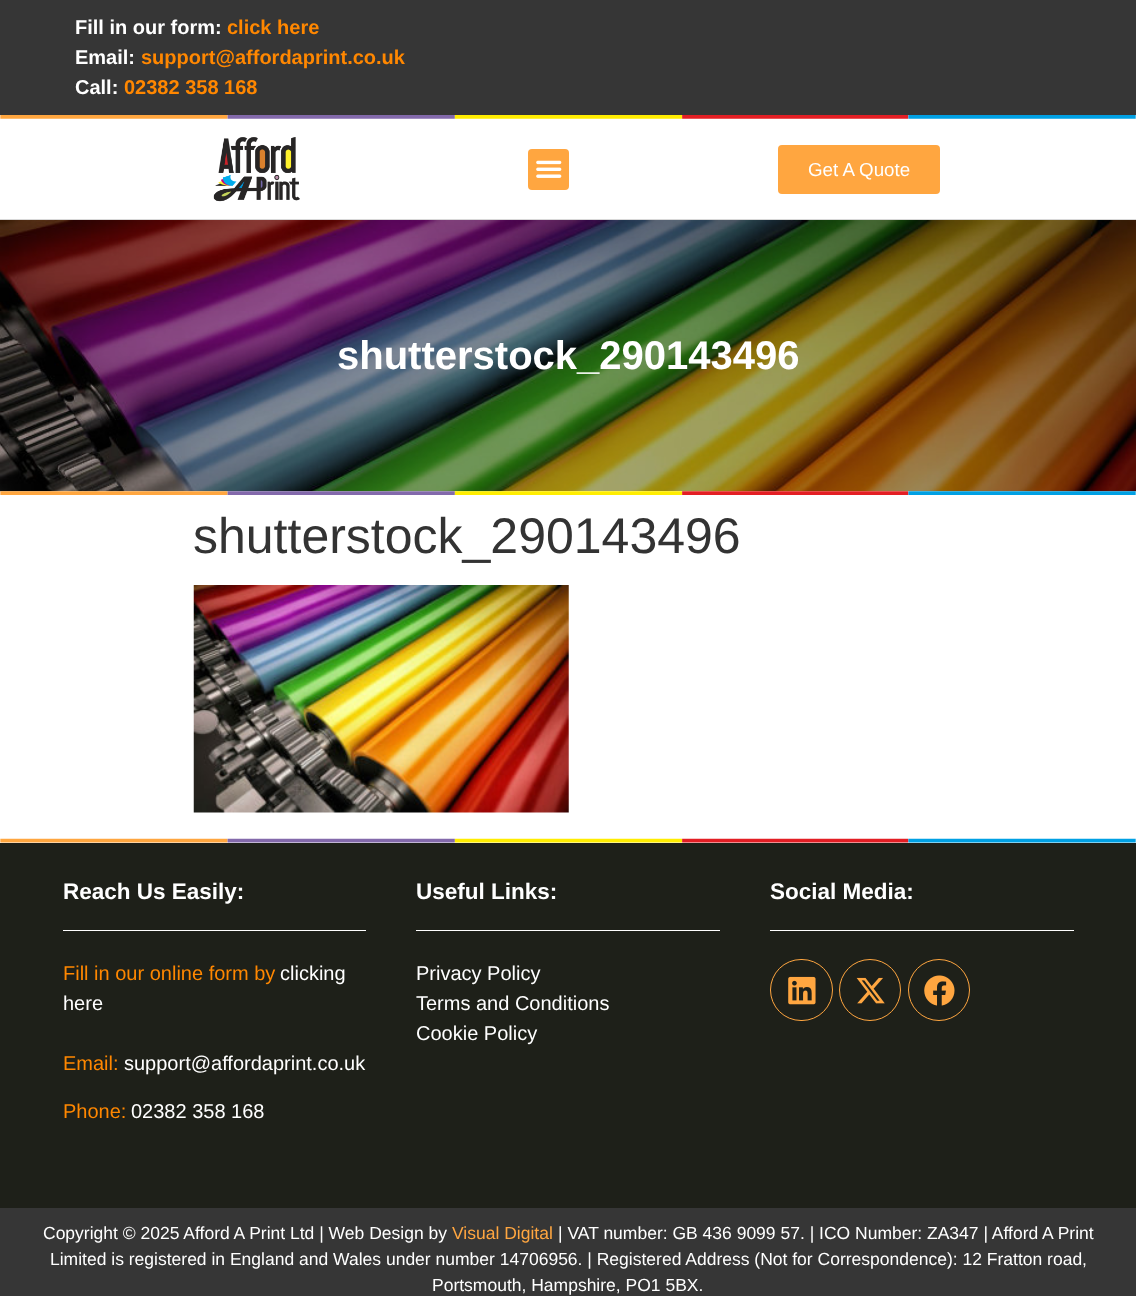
<svg xmlns="http://www.w3.org/2000/svg" width="1136" height="1296">
	<rect width="100%" height="100%" fill="#FFFFFF" />
	<rect x="0" y="0" width="1136" height="115" fill="#363636" />
	<text x="75" y="34" font-family="Liberation Sans" font-size="20" font-weight="700" fill="#FFFFFF">Fill in our form:</text>
	<text x="227" y="34" font-family="Liberation Sans" font-size="20" font-weight="700" fill="#FF8700">click here</text>
	<text x="75" y="64" font-family="Liberation Sans" font-size="20" font-weight="700" fill="#FFFFFF">Email:</text>
	<text x="141" y="64" font-family="Liberation Sans" font-size="20" font-weight="700" fill="#FF8700">support@affordaprint.co.uk</text>
	<text x="75" y="94" font-family="Liberation Sans" font-size="20" font-weight="700" fill="#FFFFFF">Call:</text>
	<text x="124" y="94" font-family="Liberation Sans" font-size="20" font-weight="700" fill="#FF8700">02382 358 168</text>
	<image x="0" y="115" width="1136" height="4" href="assets/img1.png" />
	<rect x="0" y="219" width="1136" height="1" fill="#D8D8D8" />
	<image x="213" y="137" width="87" height="65" href="assets/img2.png" />
	<rect x="528" y="149" width="41" height="41" rx="4" fill="#FFA640" />
	<image x="536" y="160" width="26" height="18" href="assets/img3.png" />
	<rect x="778" y="145" width="162" height="49" rx="4" fill="#FFA640" />
	<text x="808" y="176" font-family="Liberation Sans" font-size="18.75" fill="#FFFFFF">Get A Quote</text>
	<image x="0" y="220" width="1136" height="272" href="assets/img4.png" />
	<text x="337" y="369" font-family="Liberation Sans" font-size="40" font-weight="700" fill="#FFFFFF">shutterstock_290143496</text>
	<image x="0" y="491" width="1136" height="4" href="assets/img5.png" />
	<text x="193" y="553" font-family="Liberation Sans" font-size="50" fill="#333333">shutterstock_290143496</text>
	<image x="193" y="585" width="376" height="228" href="assets/img6.png" />
	<image x="0" y="838" width="1136" height="5" href="assets/img7.png" />
	<rect x="0" y="843" width="1136" height="365" fill="#1E2019" />
	<text x="63" y="899" font-family="Liberation Sans" font-size="22.5" font-weight="700" fill="#FFFFFF">Reach Us Easily:</text>
	<rect x="63" y="930" width="303" height="1" fill="#FFFFFF" />
	<text x="63" y="980" font-family="Liberation Sans" font-size="20" fill="#FF8700">Fill in our online form by</text>
	<g font-family="Liberation Sans" font-size="20" fill="#FFFFFF">
		<text x="280" y="980">clicking</text>
		<text x="63" y="1010">here</text>
	</g>
	<text x="63" y="1070" font-family="Liberation Sans" font-size="20" fill="#FF8700">Email:</text>
	<text x="124" y="1070" font-family="Liberation Sans" font-size="20" fill="#FFFFFF">support@affordaprint.co.uk</text>
	<text x="63" y="1118" font-family="Liberation Sans" font-size="20" fill="#FF8700">Phone:</text>
	<text x="131" y="1118" font-family="Liberation Sans" font-size="20" fill="#FFFFFF">02382 358 168</text>
	<text x="416" y="899" font-family="Liberation Sans" font-size="22.5" font-weight="700" fill="#FFFFFF">Useful Links:</text>
	<rect x="416" y="930" width="304" height="1" fill="#FFFFFF" />
	<g font-family="Liberation Sans" font-size="20" fill="#FFFFFF">
		<text x="416" y="980">Privacy Policy</text>
		<text x="416" y="1010">Terms and Conditions</text>
		<text x="416" y="1040">Cookie Policy</text>
	</g>
	<text x="770" y="899" font-family="Liberation Sans" font-size="22.5" font-weight="700" fill="#FFFFFF">Social Media:</text>
	<rect x="770" y="930" width="304" height="1" fill="#FFFFFF" />
	<rect x="770.5" y="959.5" width="62" height="61" rx="30.5" fill="none" stroke="#FFA640" />
	<image x="788" y="976" width="28" height="29" href="assets/img8.png" />
	<circle cx="870" cy="990" r="30.5" fill="none" stroke="#FFA640" />
	<image x="856" y="977" width="29" height="27" href="assets/img9.png" />
	<circle cx="939" cy="990" r="30.5" fill="none" stroke="#FFA640" />
	<image x="924" y="975" width="31" height="31" href="assets/img10.png" />
	<rect x="0" y="1208" width="1136" height="88" fill="#363636" />
	<text x="43" y="1239" font-family="Liberation Sans" font-size="17.5" fill="#FFFFFF">Copyright © 2025 Afford A Print Ltd | Web Design by</text>
	<text x="452" y="1239" font-family="Liberation Sans" font-size="17.5" fill="#FFA640">Visual Digital</text>
	<g font-family="Liberation Sans" font-size="17.5" fill="#FFFFFF">
		<text x="558" y="1239">| VAT number: GB 436 9099 57. | ICO Number: ZA347 | Afford A Print</text>
		<text x="50" y="1265">Limited is registered in England and Wales under number 14706956. | Registered Address (Not for Correspondence): 12 Fratton road,</text>
		<text x="432" y="1291">Portsmouth, Hampshire, PO1 5BX.</text>
	</g>
</svg>
